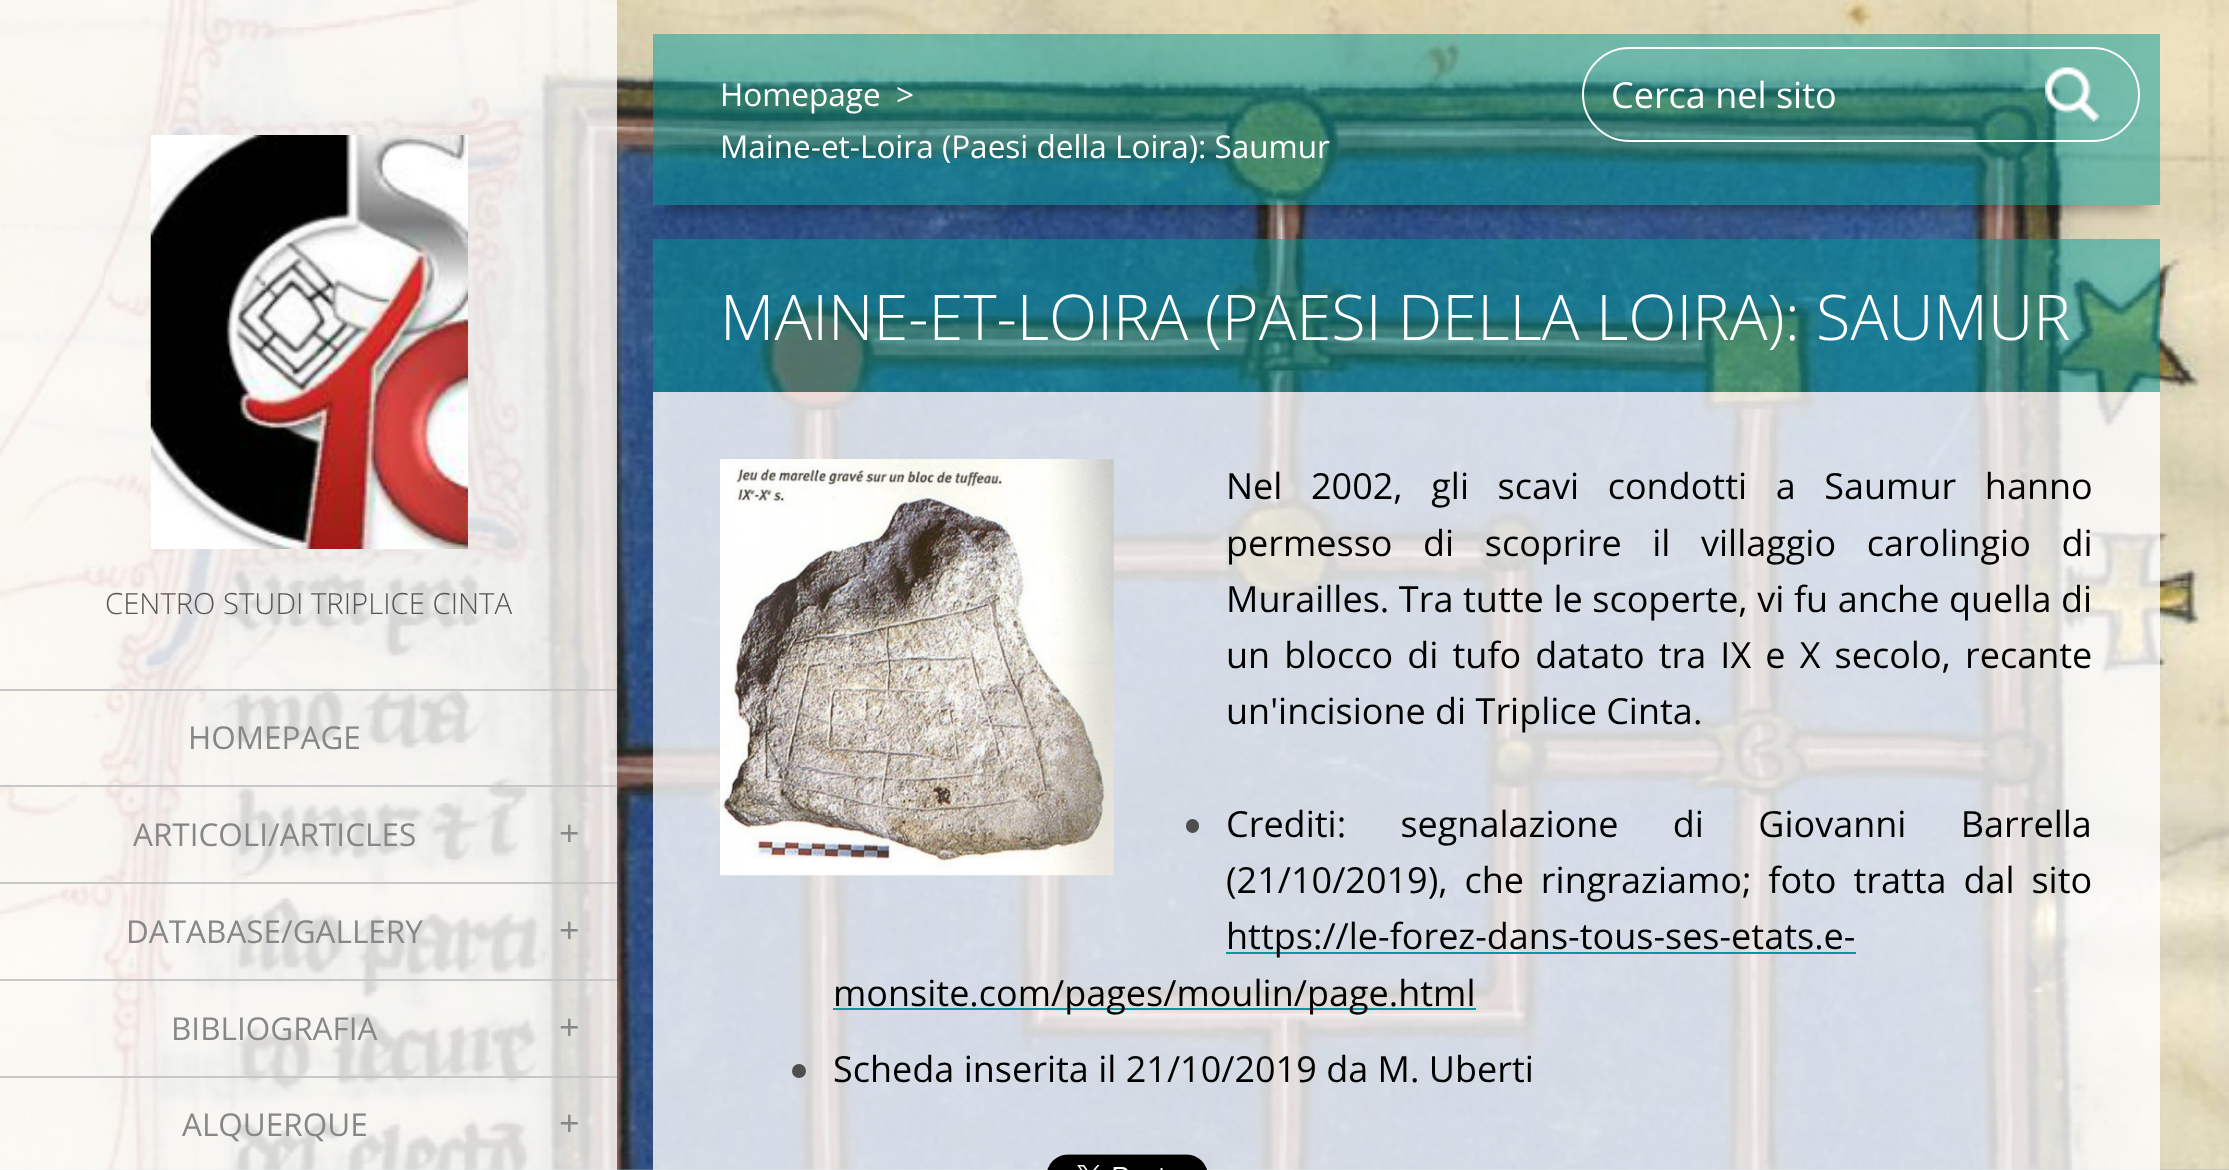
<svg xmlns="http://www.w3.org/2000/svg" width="2229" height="1170">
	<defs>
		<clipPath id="clip1"><path d="M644 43H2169V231H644ZM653 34H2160V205H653Z" clip-rule="evenodd" /></clipPath>
	</defs>
	<rect width="100%" height="100%" fill="#8AA8B2" />
	<image x="0" y="0" width="2229" height="1170" href="assets/img1.png" />
	<g clip-path="url(#clip1)">
		<rect x="666" y="65" width="1481" height="144" fill="#000000" fill-opacity="0.35" filter="blur(7px)" />
	</g>
	<rect x="653" y="34" width="1507" height="171" fill="#009A98" fill-opacity="0.5" />
	<rect x="1583" y="48" width="556" height="93" rx="46.5" fill="none" stroke="#FFFFFF" stroke-width="2" />
	<text x="1611" y="108" font-family="Open Sans" font-size="36" fill="#FFFFFF">Cerca nel sito</text>
	<image x="2045" y="67" width="55" height="55" href="assets/img2.png" />
	<rect x="0" y="0" width="617" height="576" fill="#FFFFFF" fill-opacity="0.8" />
	<image x="150" y="135" width="318" height="414" href="assets/img3.png" />
	<rect x="0" y="576" width="617" height="113" fill="#FFFFFF" fill-opacity="0.8" />
	<text x="105" y="614" font-family="Open Sans" font-size="29.25" font-weight="300" fill="#555555">CENTRO STUDI TRIPLICE CINTA</text>
	<rect x="0" y="691" width="617" height="479" fill="#FFFFFF" fill-opacity="0.8" />
	<rect x="0" y="689" width="617" height="2" fill="#C7C7C7" />
	<rect x="0" y="785" width="617" height="2" fill="#C7C7C7" />
	<text x="188" y="749" font-family="Open Sans" font-size="31.5" fill="#878787">HOMEPAGE</text>
	<rect x="0" y="882" width="617" height="2" fill="#C7C7C7" />
	<text x="133" y="846" font-family="Open Sans" font-size="31.5" fill="#878787">ARTICOLI/ARTICLES</text>
	<text x="559" y="846" font-family="Open Sans" font-size="36" fill="#878787">+</text>
	<rect x="0" y="979" width="617" height="2" fill="#C7C7C7" />
	<text x="126" y="943" font-family="Open Sans" font-size="31.5" fill="#878787">DATABASE/GALLERY</text>
	<text x="559" y="943" font-family="Open Sans" font-size="36" fill="#878787">+</text>
	<rect x="0" y="1076" width="617" height="2" fill="#C7C7C7" />
	<text x="171" y="1040" font-family="Open Sans" font-size="31.5" fill="#878787">BIBLIOGRAFIA</text>
	<text x="559" y="1040" font-family="Open Sans" font-size="36" fill="#878787">+</text>
	<text x="182" y="1136" font-family="Open Sans" font-size="31.5" fill="#878787">ALQUERQUE</text>
	<text x="559" y="1136" font-family="Open Sans" font-size="36" fill="#878787">+</text>
	<g font-family="Open Sans" font-size="31.5" fill="#FFFFFF">
		<text x="720" y="106">Homepage</text>
		<text x="896" y="106">&gt;</text>
		<text x="720" y="158">Maine-et-Loira (Paesi della Loira): Saumur</text>
	</g>
	<rect x="653" y="239" width="1507" height="153" fill="#009A98" fill-opacity="0.5" />
	<text x="720" y="340" font-family="Open Sans" font-size="63" font-weight="300" fill="#FFFFFF">MAINE-ET-LOIRA (PAESI DELLA LOIRA): SAUMUR</text>
	<rect x="653" y="392" width="1507" height="762" fill="#FFFFFF" fill-opacity="0.8" />
	<image x="720" y="459" width="394" height="417" href="assets/img4.png" />
	<g font-family="Open Sans" font-size="36" fill="#000000">
		<text x="1226" y="499" word-spacing="19.25">Nel 2002, gli scavi condotti a Saumur hanno</text>
		<text x="1226" y="556" word-spacing="21.25">permesso di scoprire il villaggio carolingio di</text>
		<text x="1226" y="612" word-spacing="0.25">Murailles. Tra tutte le scoperte, vi fu anche quella di</text>
		<text x="1226" y="668" word-spacing="4.75">un blocco di tufo datato tra IX e X secolo, recante</text>
		<text x="1226" y="724">un'incisione di Triplice Cinta.</text>
	</g>
	<rect x="1186" y="819" width="13" height="14" rx="6.5" fill="#4E4E4E" />
	<g font-family="Open Sans" font-size="36" fill="#000000">
		<text x="1226" y="837" word-spacing="45">Crediti: segnalazione di Giovanni Barrella</text>
		<text x="1226" y="893" word-spacing="7.5">(21/10/2019), che ringraziamo; foto tratta dal sito</text>
	</g>
	<rect x="1226" y="952" width="630" height="2" fill="#009A98" />
	<text x="1226" y="949" font-family="Open Sans" font-size="36" fill="#000000">https://le-forez-dans-tous-ses-etats.e-</text>
	<rect x="833" y="1008" width="643" height="2" fill="#009A98" />
	<text x="833" y="1006" font-family="Open Sans" font-size="36" fill="#000000">monsite.com/pages/moulin/page.html</text>
	<circle cx="799" cy="1071" r="7" fill="#4E4E4E" />
	<text x="833" y="1082" font-family="Open Sans" font-size="36" fill="#000000">Scheda inserita il 21/10/2019 da M. Uberti</text>
	<rect x="653" y="1154" width="1507" height="16" fill="#FFFFFF" fill-opacity="0.8" />
	<image x="1047" y="1154" width="160" height="16" href="assets/img5.png" />
</svg>
